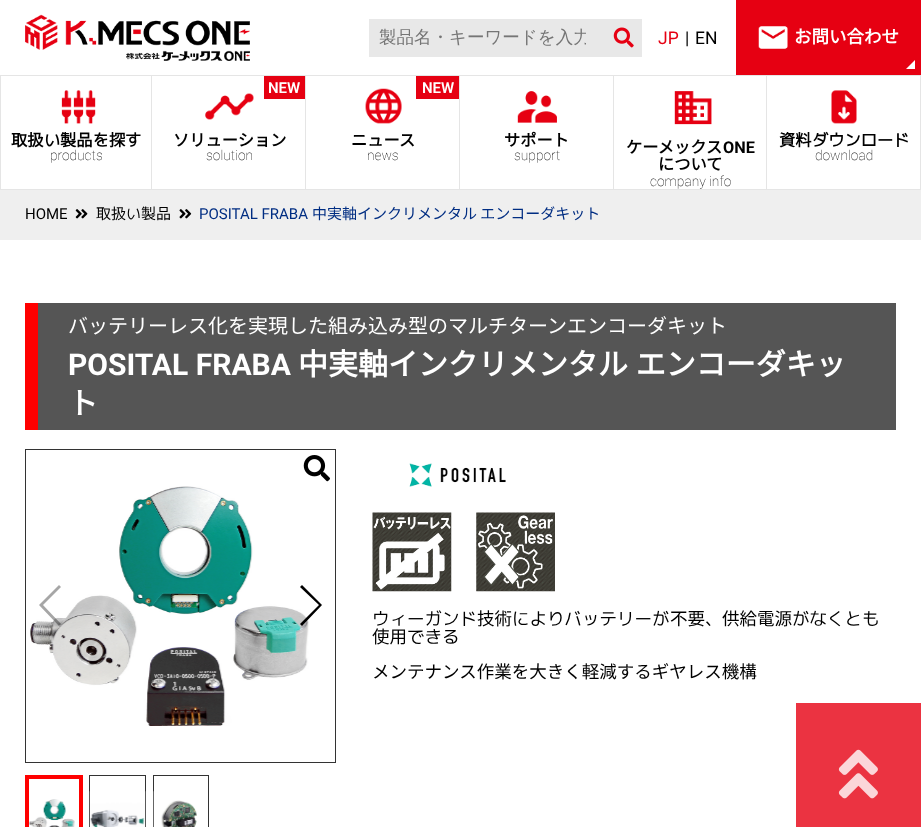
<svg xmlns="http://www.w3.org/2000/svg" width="921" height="827">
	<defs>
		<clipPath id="clip1"><rect x="379" y="28" width="207" height="22" /></clipPath>
	</defs>
	<rect width="100%" height="100%" fill="#FFFFFF" />
	<image x="25" y="14" width="225" height="47" href="assets/img1.png" />
	<rect x="369" y="19" width="273" height="38" fill="#E8E8E8" />
	<g clip-path="url(#clip1)">
		<text x="379" y="43" font-family="WenQuanYi Zen Hei" font-size="17.5" font-weight="500" fill="#757575">製品名・キーワードを入力</text>
	</g>
	<image x="613" y="27" width="21" height="21" href="assets/img2.png" />
	<text x="658" y="44" font-family="Roboto" font-size="17.5" fill="#E60012">JP</text>
	<g font-family="Roboto" font-size="17.5" fill="#000000">
		<text x="685" y="44">|</text>
		<text x="695" y="44">EN</text>
	</g>
	<rect x="736" y="0" width="185" height="75" fill="#E60012" />
	<image x="758" y="26" width="30" height="23" href="assets/img3.png" />
	<text x="794" y="43" font-family="Noto Sans JP" font-size="17.5" font-weight="700" fill="#FFFFFF">お問い合わせ</text>
	<path d="M915 60L906 69H915Z" fill="#FFFFFF" />
	<rect x="0" y="75" width="921" height="1" fill="#E5E5E5" />
	<rect x="0" y="189" width="921" height="1" fill="#E5E5E5" />
	<image x="61" y="90" width="35" height="34" href="assets/img4.png" />
	<rect x="151" y="76" width="1" height="113" fill="#E5E5E5" />
	<rect x="0" y="76" width="1" height="113" fill="#E5E5E5" />
	<text x="11" y="146" font-family="Noto Sans JP" font-size="16.25" font-weight="700" fill="#000000">取扱</text>
	<text x="44" y="146" font-family="'M PLUS 1p'" font-size="16.25" font-weight="700" fill="#000000">い</text>
	<text x="60" y="146" font-family="Noto Sans JP" font-size="16.25" font-weight="700" fill="#000000">製品</text>
	<text x="93" y="146" font-family="'M PLUS 1p'" font-size="16.25" font-weight="700" fill="#000000">を</text>
	<text x="109" y="146" font-family="Noto Sans JP" font-size="16.25" font-weight="700" fill="#000000">探</text>
	<text x="125" y="146" font-family="'M PLUS 1p'" font-size="16.25" font-weight="700" fill="#000000">す</text>
	<text x="50" y="160" font-family="Roboto" font-size="13.75" font-weight="100" fill="#000000">products</text>
	<image x="205" y="93" width="49" height="27" href="assets/img5.png" />
	<rect x="305" y="76" width="1" height="113" fill="#E5E5E5" />
	<rect x="264" y="76" width="41" height="23" fill="#E60012" />
	<text x="268" y="93" font-family="Roboto" font-size="15" font-weight="600" fill="#FFFFFF">NEW</text>
	<text x="173" y="146" font-family="Noto Sans JP" font-size="16.25" font-weight="700" fill="#000000">ソリューション</text>
	<text x="206" y="160" font-family="Roboto" font-size="13.75" font-weight="100" fill="#000000">solution</text>
	<image x="365" y="88" width="37" height="36" href="assets/img6.png" />
	<rect x="459" y="76" width="1" height="113" fill="#E5E5E5" />
	<rect x="416" y="76" width="43" height="23" fill="#E60012" />
	<text x="422" y="93" font-family="Roboto" font-size="15" font-weight="600" fill="#FFFFFF">NEW</text>
	<text x="351" y="146" font-family="Noto Sans JP" font-size="16.25" font-weight="700" fill="#000000">ニュース</text>
	<text x="367" y="160" font-family="Roboto" font-size="13.75" font-weight="100" fill="#000000">news</text>
	<image x="517" y="91" width="40" height="32" href="assets/img7.png" />
	<rect x="613" y="76" width="1" height="113" fill="#E5E5E5" />
	<text x="504" y="146" font-family="Noto Sans JP" font-size="16.25" font-weight="700" fill="#000000">サポート</text>
	<text x="514" y="160" font-family="Roboto" font-size="13.75" font-weight="100" fill="#000000">support</text>
	<image x="674" y="91" width="38" height="34" href="assets/img8.png" />
	<rect x="766" y="76" width="1" height="113" fill="#E5E5E5" />
	<text x="626" y="153" font-family="Noto Sans JP" font-size="16.25" font-weight="700" fill="#000000">ケーメックス</text>
	<text x="723" y="153" font-family="Roboto" font-size="16.25" font-weight="700" fill="#000000">ONE</text>
	<text x="658" y="170" font-family="Noto Sans JP" font-size="16.25" font-weight="700" fill="#000000">について</text>
	<text x="650" y="186" font-family="Roboto" font-size="13.75" font-weight="100" fill="#000000">company info</text>
	<image x="831" y="90" width="26" height="34" href="assets/img9.png" />
	<rect x="920" y="76" width="1" height="113" fill="#E5E5E5" />
	<text x="779" y="146" font-family="Noto Sans JP" font-size="16.25" font-weight="700" fill="#000000">資料</text>
	<text x="812" y="146" font-family="'M PLUS 1p'" font-size="16.25" font-weight="700" fill="#000000">ダウンロード</text>
	<text x="815" y="160" font-family="Roboto" font-size="13.75" font-weight="100" fill="#000000">download</text>
	<rect x="0" y="190" width="921" height="50" fill="#EFEFEF" />
	<text x="25" y="219" font-family="Roboto" font-size="15" fill="#000000">HOME</text>
	<image x="75" y="209" width="13" height="10" href="assets/img10.png" />
	<text x="96" y="219" font-family="Noto Sans JP" font-size="15" font-weight="100" fill="#000000">取扱</text>
	<text x="126" y="219" font-family="'M PLUS 1p'" font-size="15" fill="#000000">い</text>
	<text x="141" y="219" font-family="Noto Sans JP" font-size="15" font-weight="100" fill="#000000">製品</text>
	<image x="179" y="209" width="13" height="10" href="assets/img11.png" />
	<text x="199" y="219" font-family="Roboto" font-size="15" fill="#002D82">POSITAL FRABA</text>
	<text x="312" y="219" font-family="Noto Sans JP" font-size="15" font-weight="100" fill="#002D82">中実軸インクリメンタル エンコーダキット</text>
	<rect x="38" y="303" width="858" height="127" fill="#555555" />
	<rect x="25" y="303" width="13" height="127" fill="#FF0000" />
	<text x="68" y="333" font-family="Noto Sans JP" font-size="20" font-weight="100" fill="#FFFFFF">バッテリーレス化を実現した組み込み型のマルチターンエンコーダキット</text>
	<text x="68" y="375" font-family="Roboto" font-size="30" font-weight="700" fill="#FFFFFF">POSITAL FRABA</text>
	<g font-family="Noto Sans JP" font-size="30" font-weight="700" fill="#FFFFFF">
		<text x="298" y="375" word-spacing="1">中実軸インクリメンタル エンコーダキッ</text>
		<text x="68" y="414">ト</text>
	</g>
	<rect x="25.5" y="449.5" width="310" height="313" fill="none" stroke="#333333" />
	<image x="30" y="486" width="279" height="240" href="assets/img12.png" />
	<path d="M39 605L59 585L61 587L43 605L61 624L59 626Z" fill="#000000" fill-opacity="0.35" />
	<path d="M322 605L302 626L300 624L319 605L300 587L302 585Z" fill="#000000" />
	<image x="303" y="455" width="27" height="27" href="assets/img13.png" />
	<rect x="27" y="777" width="54" height="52" fill="none" stroke="#FF0000" stroke-width="4" />
	<image x="29" y="799" width="46" height="28" href="assets/img14.png" />
	<rect x="89.5" y="775.5" width="56" height="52" fill="none" stroke="#333333" />
	<image x="89" y="791" width="57" height="36" href="assets/img15.png" />
	<rect x="153.5" y="775.5" width="55" height="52" fill="none" stroke="#333333" />
	<image x="153" y="791" width="44" height="36" href="assets/img16.png" />
	<image x="409" y="463" width="97" height="24" href="assets/img17.png" />
	<image x="372" y="512" width="80" height="80" href="assets/img18.png" />
	<image x="476" y="512" width="79" height="80" href="assets/img19.png" />
	<text x="372" y="625" font-family="'M PLUS 1p'" font-size="17.5" fill="#000000">ウィーガンド</text>
	<text x="477" y="625" font-family="Noto Sans JP" font-size="17.5" font-weight="100" fill="#000000">技術</text>
	<text x="512" y="625" font-family="'M PLUS 1p'" font-size="17.5" fill="#000000">によりバッテリーが</text>
	<text x="670" y="625" font-family="Noto Sans JP" font-size="17.5" font-weight="100" fill="#000000">不要</text>
	<text x="705" y="625" font-family="'M PLUS 1p'" font-size="17.5" fill="#000000">、</text>
	<text x="722" y="625" font-family="Noto Sans JP" font-size="17.5" font-weight="100" fill="#000000">供給電源</text>
	<text x="792" y="625" font-family="'M PLUS 1p'" font-size="17.5" fill="#000000">がなくとも</text>
	<text x="372" y="643" font-family="Noto Sans JP" font-size="17.5" font-weight="100" fill="#000000">使用</text>
	<text x="407" y="643" font-family="'M PLUS 1p'" font-size="17.5" fill="#000000">できる</text>
	<text x="372" y="678" font-family="Noto Sans JP" font-size="17.5" font-weight="100" fill="#000000">メンテナンス作業を大きく軽減するギヤレス機構</text>
	<rect x="796" y="703" width="125" height="124" fill="#EB3341" />
	<image x="838" y="749" width="40" height="50" href="assets/img20.png" />
</svg>
